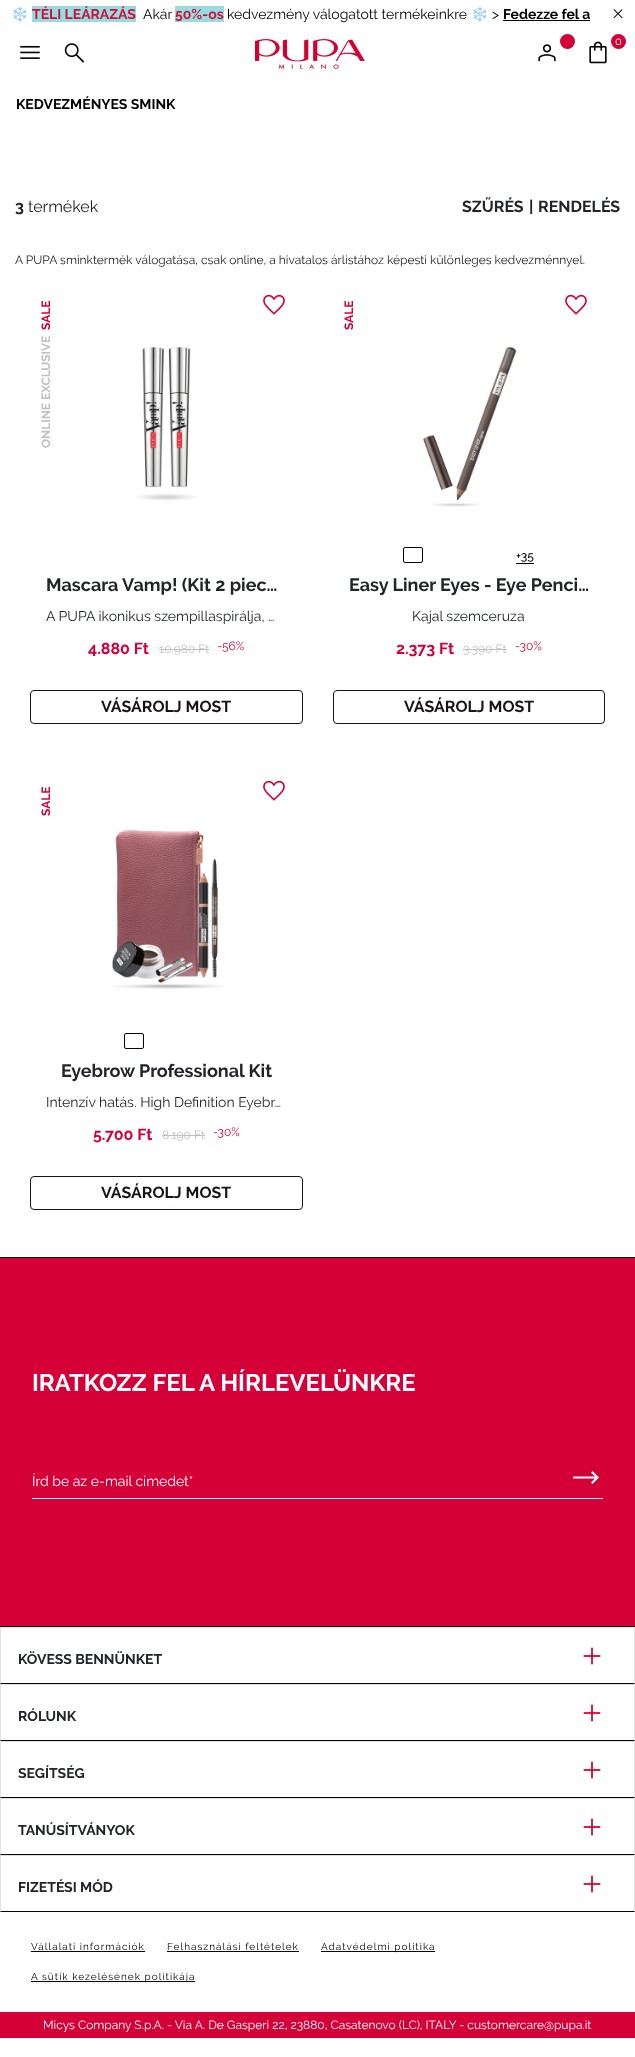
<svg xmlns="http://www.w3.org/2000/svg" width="635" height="2057">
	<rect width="100%" height="100%" fill="#FFFFFF" />
	<text x="11" y="19" font-family="Noto Color Emoji" font-size="14" fill="#212529">❄️</text>
	<rect x="32" y="6" width="104" height="16" fill="#96DDE1" />
	<text x="32" y="19" font-family="Raleway" font-size="14" font-weight="700" fill="#D50E39">TÉLI LEÁRAZÁS</text>
	<text x="143" y="19" font-family="Raleway" font-size="14" fill="#000000">Akár</text>
	<rect x="175" y="6" width="49" height="16" fill="#96DDE1" />
	<text x="175" y="19" font-family="Raleway" font-size="14" font-weight="700" fill="#D50E39">50%-os</text>
	<text x="227" y="19" font-family="Raleway" font-size="14" fill="#000000">kedvezmény válogatott termékeinkre</text>
	<text x="471" y="19" font-family="Noto Color Emoji" font-size="14" font-weight="700" fill="#212529">❄️</text>
	<text x="492" y="19" font-family="Raleway" font-size="14" fill="#000000">&gt;</text>
	<text x="503" y="19" font-family="Raleway" font-size="14" font-weight="700" fill="#000000">Fedezze fel a</text>
	<rect x="503" y="20" width="87" height="1" fill="#000000" />
	<image x="613" y="9" width="10" height="10" href="assets/img1.png" />
	<image x="20" y="45" width="20" height="14" href="assets/img2.png" />
	<image x="64" y="43" width="21" height="20" href="assets/img3.png" />
	<image x="255" y="39" width="110" height="30" href="assets/img4.png" />
	<circle cx="567.5" cy="41.5" r="7.5" fill="#D50037" />
	<image x="538" y="44" width="18" height="18" href="assets/img5.png" />
	<image x="589" y="41" width="18" height="23" href="assets/img6.png" />
	<circle cx="618.5" cy="41.5" r="7.5" fill="#D50037" />
	<text x="615" y="45" font-family="Raleway" font-size="11" fill="#FFFFFF">0</text>
	<text x="16" y="109" font-family="Raleway" font-size="14" font-weight="700" fill="#000000">KEDVEZMÉNYES SMINK</text>
	<text x="15" y="212" font-family="Raleway" font-size="16" font-weight="700" fill="#212529">3</text>
	<text x="28" y="212" font-family="Raleway" font-size="16" fill="#212529">termékek</text>
	<g font-family="Raleway" font-size="16" font-weight="700" fill="#212529">
		<text x="462" y="212">SZŰRÉS</text>
		<text x="529" y="212">|</text>
		<text x="538" y="212">RENDELÉS</text>
	</g>
	<text x="15" y="264" font-family="Raleway" font-size="12" fill="#212529">A PUPA sminktermék válogatása, csak online, a hivatalos árlistához képesti különleges kedvezménnyel.</text>
	<text x="50" y="330" transform="rotate(-90 50 330)" font-family="Raleway" font-size="12" font-weight="700" fill="#D50037">SALE</text>
	<text x="50" y="448" transform="rotate(-90 50 448)" font-family="Raleway" font-size="12" font-weight="700" fill="#C0C0C0">ONLINE EXCLUSIVE</text>
	<image x="135" y="346" width="63" height="155" href="assets/img7.png" />
	<image x="263" y="294" width="22" height="21" href="assets/img8.png" />
	<text x="46" y="591" font-family="Raleway" font-size="18" font-weight="700" fill="#212529">Mascara Vamp! (Kit 2 piec…</text>
	<text x="46" y="621" font-family="Raleway" font-size="14" fill="#212529">A PUPA ikonikus szempillaspirálja, …</text>
	<text x="88" y="654" font-family="Raleway" font-size="16" font-weight="700" fill="#D50037">4.880 Ft</text>
	<text x="159" y="653" font-family="Raleway" font-size="12" fill="#C0C0C0">10.980 Ft</text>
	<rect x="159" y="649" width="50" height="1" fill="#C0C0C0" />
	<text x="217" y="650" font-family="Raleway" font-size="12" fill="#D50037">-56%</text>
	<rect x="30.5" y="690.5" width="272" height="33" rx="3.5" fill="none" stroke="#1B1213" />
	<text x="101" y="712" font-family="Raleway" font-size="16" font-weight="700" fill="#1B1213">VÁSÁROLJ MOST</text>
	<text x="353" y="330" transform="rotate(-90 353 330)" font-family="Raleway" font-size="12" font-weight="700" fill="#D50037">SALE</text>
	<image x="565" y="294" width="22" height="21" href="assets/img8.png" />
	<image x="423" y="346" width="94" height="161" href="assets/img9.png" />
	<rect x="403.5" y="547.5" width="19" height="15" rx="1.5" fill="none" stroke="#050504" />
	<text x="516" y="560" font-family="Raleway" font-size="12" font-weight="500" fill="#000000">+35</text>
	<rect x="516" y="563" width="18" height="1" fill="#050504" />
	<text x="349" y="591" font-family="Raleway" font-size="18" font-weight="700" fill="#212529">Easy Liner Eyes - Eye Penci…</text>
	<text x="412" y="621" font-family="Raleway" font-size="14" fill="#212529">Kajal szemceruza</text>
	<text x="396" y="654" font-family="Raleway" font-size="16" font-weight="700" fill="#D50037">2.373 Ft</text>
	<text x="463" y="653" font-family="Raleway" font-size="12" fill="#C0C0C0">3.390 Ft</text>
	<rect x="463" y="649" width="44" height="1" fill="#C0C0C0" />
	<text x="515" y="650" font-family="Raleway" font-size="12" fill="#D50037">-30%</text>
	<rect x="333.5" y="690.5" width="271" height="33" rx="3.5" fill="none" stroke="#1B1213" />
	<text x="404" y="712" font-family="Raleway" font-size="16" font-weight="700" fill="#1B1213">VÁSÁROLJ MOST</text>
	<text x="50" y="816" transform="rotate(-90 50 816)" font-family="Raleway" font-size="12" font-weight="700" fill="#D50037">SALE</text>
	<image x="263" y="780" width="22" height="21" href="assets/img8.png" />
	<image x="111" y="829" width="114" height="160" href="assets/img10.png" />
	<rect x="124.5" y="1033.5" width="19" height="15" rx="1.5" fill="none" stroke="#050504" />
	<text x="61" y="1077" font-family="Raleway" font-size="18" font-weight="700" fill="#212529">Eyebrow Professional Kit</text>
	<text x="46" y="1107" font-family="Raleway" font-size="14" fill="#212529">Intenzív hatás. High Definition Eyebr…</text>
	<text x="93" y="1140" font-family="Raleway" font-size="16" font-weight="700" fill="#D50037">5.700 Ft</text>
	<text x="162" y="1139" font-family="Raleway" font-size="12" fill="#C0C0C0">8.190 Ft</text>
	<rect x="162" y="1135" width="43" height="1" fill="#C0C0C0" />
	<text x="213" y="1136" font-family="Raleway" font-size="12" fill="#D50037">-30%</text>
	<rect x="30.5" y="1176.5" width="272" height="33" rx="3.5" fill="none" stroke="#1B1213" />
	<text x="101" y="1198" font-family="Raleway" font-size="16" font-weight="700" fill="#1B1213">VÁSÁROLJ MOST</text>
	<rect x="0" y="1257" width="635" height="1" fill="#050504" />
	<rect x="0" y="1626" width="635" height="1" fill="#050504" />
	<rect x="0" y="1258" width="635" height="368" fill="#D50037" />
	<text x="32" y="1391" font-family="Raleway" font-size="24" font-weight="700" fill="#FFFFFF">IRATKOZZ FEL A HÍRLEVELÜNKRE</text>
	<rect x="32" y="1498" width="571" height="1" fill="#FFFFFF" />
	<text x="32" y="1486" font-family="Raleway" font-size="14" fill="#FFFFFF">Írd be az e-mail címedet*</text>
	<path d="M592.5 1484L591 1482.5L595 1478.5H573V1476.5H595L591 1472.5L592.5 1471L599 1477.5Z" fill="#FFFFFF" />
	<path d="M0 1627H635L634 1628H1Z" fill="#E0E0E0" />
	<path d="M635 1627V1684L634 1683V1628Z" fill="#050504" fill-opacity="0.12" />
	<path d="M635 1684H0L1 1683H634Z" fill="#050504" />
	<path d="M0 1684V1627L1 1628V1683Z" fill="#050504" fill-opacity="0.12" />
	<text x="18" y="1664" font-family="Raleway" font-size="14" font-weight="700" fill="#212529">KÖVESS BENNÜNKET</text>
	<image x="583" y="1647" width="18" height="18" href="assets/img11.png" />
	<path d="M0 1684H635L634 1685H1Z" fill="#E0E0E0" />
	<path d="M635 1684V1741L634 1740V1685Z" fill="#050504" fill-opacity="0.12" />
	<path d="M635 1741H0L1 1740H634Z" fill="#050504" />
	<path d="M0 1741V1684L1 1685V1740Z" fill="#050504" fill-opacity="0.12" />
	<text x="18" y="1721" font-family="Raleway" font-size="14" font-weight="700" fill="#212529">RÓLUNK</text>
	<image x="583" y="1704" width="18" height="18" href="assets/img11.png" />
	<path d="M0 1741H635L634 1742H1Z" fill="#E0E0E0" />
	<path d="M635 1741V1798L634 1797V1742Z" fill="#050504" fill-opacity="0.12" />
	<path d="M635 1798H0L1 1797H634Z" fill="#050504" />
	<path d="M0 1798V1741L1 1742V1797Z" fill="#050504" fill-opacity="0.12" />
	<text x="18" y="1778" font-family="Raleway" font-size="14" font-weight="700" fill="#212529">SEGÍTSÉG</text>
	<image x="583" y="1761" width="18" height="18" href="assets/img11.png" />
	<path d="M0 1798H635L634 1799H1Z" fill="#E0E0E0" />
	<path d="M635 1798V1855L634 1854V1799Z" fill="#050504" fill-opacity="0.12" />
	<path d="M635 1855H0L1 1854H634Z" fill="#050504" />
	<path d="M0 1855V1798L1 1799V1854Z" fill="#050504" fill-opacity="0.12" />
	<text x="18" y="1835" font-family="Raleway" font-size="14" font-weight="700" fill="#212529">TANÚSÍTVÁNYOK</text>
	<image x="583" y="1818" width="18" height="18" href="assets/img11.png" />
	<path d="M0 1855H635L634 1856H1Z" fill="#E0E0E0" />
	<path d="M635 1855V1912L634 1911V1856Z" fill="#050504" fill-opacity="0.12" />
	<path d="M635 1912H0L1 1911H634Z" fill="#050504" />
	<path d="M0 1912V1855L1 1856V1911Z" fill="#050504" fill-opacity="0.12" />
	<text x="18" y="1892" font-family="Raleway" font-size="14" font-weight="700" fill="#212529">FIZETÉSI MÓD</text>
	<image x="583" y="1875" width="18" height="18" href="assets/img11.png" />
	<text x="31" y="1950" font-family="Raleway" font-size="10" letter-spacing="1" fill="#000000">Vállalati információk</text>
	<rect x="31" y="1951" width="114" height="1" fill="#050504" />
	<text x="167" y="1950" font-family="Raleway" font-size="10" letter-spacing="1" fill="#000000">Felhasználási feltételek</text>
	<rect x="167" y="1951" width="132" height="1" fill="#050504" />
	<rect x="321" y="1951" width="114" height="1" fill="#050504" />
	<text x="321" y="1950" font-family="Raleway" font-size="10" letter-spacing="1" fill="#000000">Adatvédelmi politika</text>
	<rect x="31" y="1981" width="164" height="1" fill="#050504" />
	<text x="31" y="1980" font-family="Raleway" font-size="10" letter-spacing="1" fill="#000000">A sütik kezelésének politikája</text>
	<rect x="0" y="2012" width="635" height="26" fill="#D50037" />
	<text x="43" y="2029" font-family="Raleway" font-size="12" fill="#FFFFFF">Micys Company S.p.A. - Via A. De Gasperi 22, 23880, Casatenovo (LC), ITALY - customercare@pupa.it</text>
</svg>
